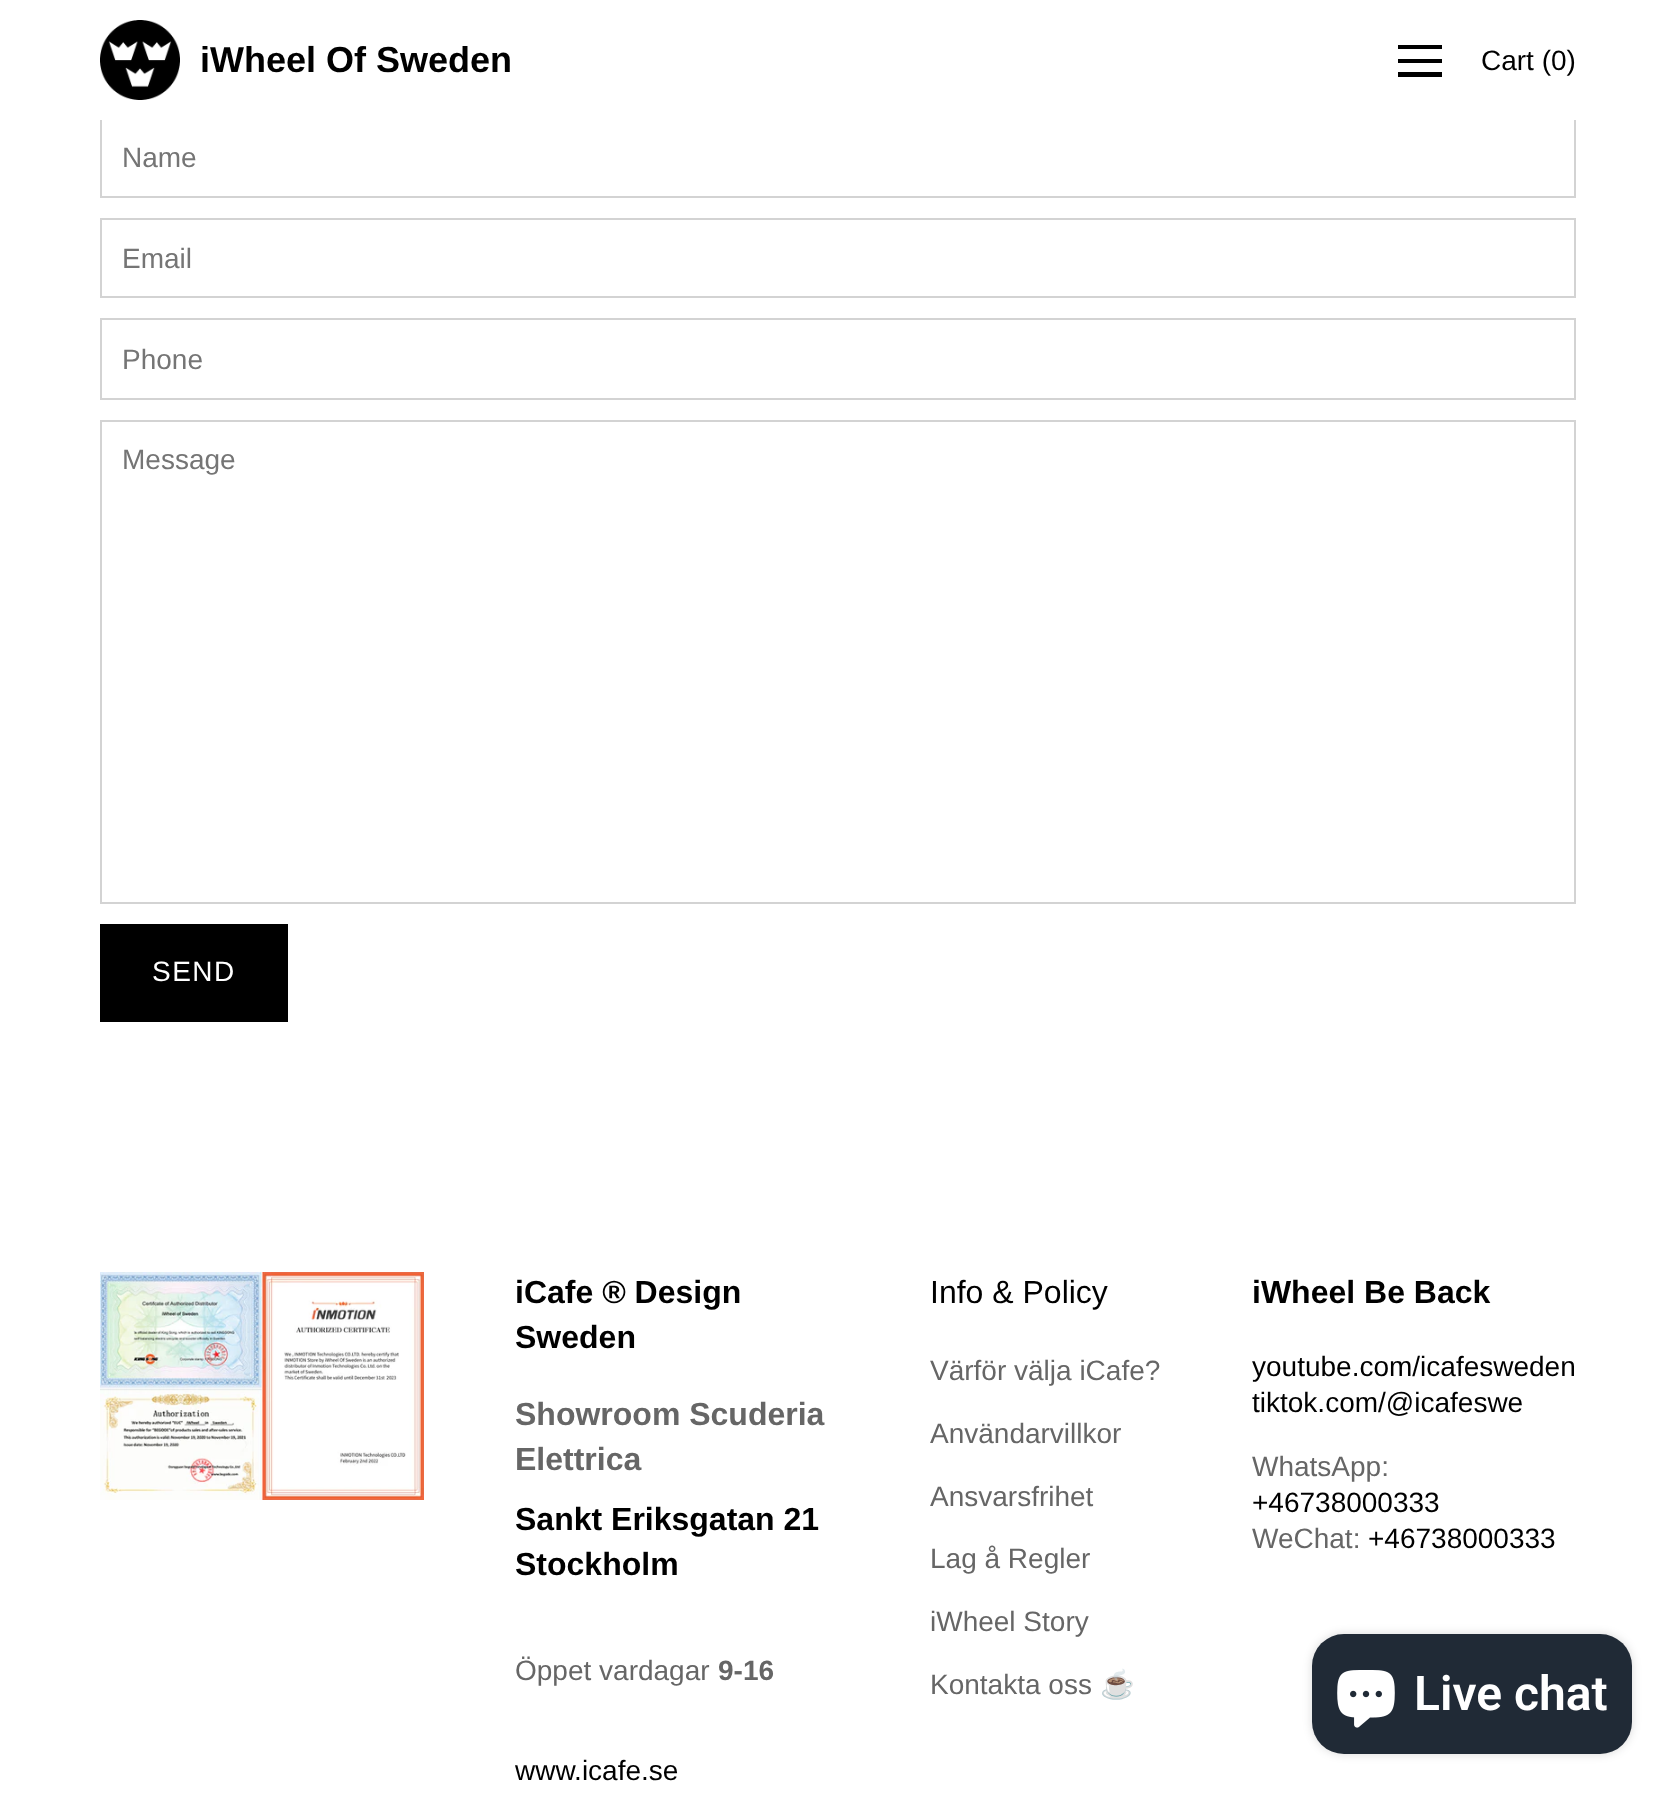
<svg xmlns="http://www.w3.org/2000/svg" width="1676" height="1795">
	<rect width="100%" height="100%" fill="#FFFFFF" />
	<rect x="101" y="119" width="1474" height="78" fill="none" stroke="#D3D3D3" stroke-width="2" />
	<rect x="100" y="118" width="1476" height="2" fill="#FFFFFF" />
	<image x="100" y="20" width="80" height="80" href="assets/img1.png" />
	<text x="200" y="72" font-family="Liberation Sans" font-size="36" font-weight="700" fill="#000000">iWheel Of Sweden</text>
	<path d="M1398 45V49H1442V45ZM1398 59V63H1442V59ZM1398 72V77H1442V72Z" fill="#000000" />
	<text x="1481" y="70" font-family="Liberation Sans" font-size="28" fill="#000000">Cart (0)</text>
	<text x="122" y="167" font-family="Liberation Sans" font-size="28" fill="#757575">Name</text>
	<rect x="101" y="219" width="1474" height="78" fill="none" stroke="#D3D3D3" stroke-width="2" />
	<text x="122" y="268" font-family="Liberation Sans" font-size="28" fill="#757575">Email</text>
	<rect x="101" y="319" width="1474" height="80" fill="none" stroke="#D3D3D3" stroke-width="2" />
	<text x="122" y="369" font-family="Liberation Sans" font-size="28" fill="#757575">Phone</text>
	<rect x="101" y="421" width="1474" height="482" fill="none" stroke="#D3D3D3" stroke-width="2" />
	<text x="122" y="469" font-family="Liberation Sans" font-size="28" fill="#757575">Message</text>
	<rect x="102" y="926" width="184" height="94" fill="none" stroke="#000000" stroke-width="4" />
	<rect x="104" y="928" width="180" height="90" fill="#000000" />
	<text x="152" y="981" font-family="Liberation Sans" font-size="28" letter-spacing="1.5" fill="#FFFFFF">SEND</text>
	<image x="100" y="1272" width="324" height="228" href="assets/img2.png" />
	<g font-family="Liberation Sans" font-size="32" font-weight="700" fill="#000000">
		<text x="515" y="1303">iCafe ® Design</text>
		<text x="515" y="1348">Sweden</text>
	</g>
	<g font-family="Liberation Sans" font-size="32" font-weight="700" fill="#666666">
		<text x="515" y="1425">Showroom Scuderia</text>
		<text x="515" y="1470">Elettrica</text>
	</g>
	<g font-family="Liberation Sans" font-size="32" font-weight="700" fill="#000000">
		<text x="515" y="1530">Sankt Eriksgatan 21</text>
		<text x="515" y="1575">Stockholm</text>
	</g>
	<text x="515" y="1680" font-family="Liberation Sans" font-size="28" fill="#666666">Öppet vardagar</text>
	<text x="718" y="1680" font-family="Liberation Sans" font-size="28" font-weight="700" fill="#666666">9-16</text>
	<text x="515" y="1780" font-family="Liberation Sans" font-size="28" fill="#000000">www.icafe.se</text>
	<text x="930" y="1303" font-family="Liberation Sans" font-size="32" fill="#000000">Info &amp; Policy</text>
	<g font-family="Liberation Sans" font-size="28" fill="#666666">
		<text x="930" y="1380">Värför välja iCafe?</text>
		<text x="930" y="1443">Användarvillkor</text>
		<text x="930" y="1506">Ansvarsfrihet</text>
		<text x="930" y="1568">Lag å Regler</text>
		<text x="930" y="1631">iWheel Story</text>
		<text x="930" y="1694">Kontakta oss</text>
	</g>
	<text x="1100" y="1694" font-family="Noto Color Emoji" font-size="28" fill="#666666">☕️</text>
	<text x="1252" y="1303" font-family="Liberation Sans" font-size="32" font-weight="700" fill="#000000">iWheel Be Back</text>
	<g font-family="Liberation Sans" font-size="28" fill="#000000">
		<text x="1252" y="1376">youtube.com/icafesweden</text>
		<text x="1252" y="1412">tiktok.com/@icafeswe</text>
	</g>
	<text x="1252" y="1476" font-family="Liberation Sans" font-size="28" fill="#666666">WhatsApp:</text>
	<text x="1252" y="1512" font-family="Liberation Sans" font-size="28" fill="#000000">+46738000333</text>
	<text x="1252" y="1548" font-family="Liberation Sans" font-size="28" fill="#666666">WeChat:</text>
	<text x="1368" y="1548" font-family="Liberation Sans" font-size="28" fill="#000000">+46738000333</text>
	<rect x="1312" y="1634" width="320" height="120" rx="32" fill="#000000" fill-opacity="0.15" filter="blur(5px)" />
	<rect x="1312" y="1634" width="320" height="120" rx="32" fill="#202A36" />
	<image x="1337" y="1670" width="58" height="58" href="assets/img3.png" />
	<text x="1414" y="1710" font-family="Roboto" font-size="48" font-weight="600" fill="#FFFFFF">Live chat</text>
</svg>
